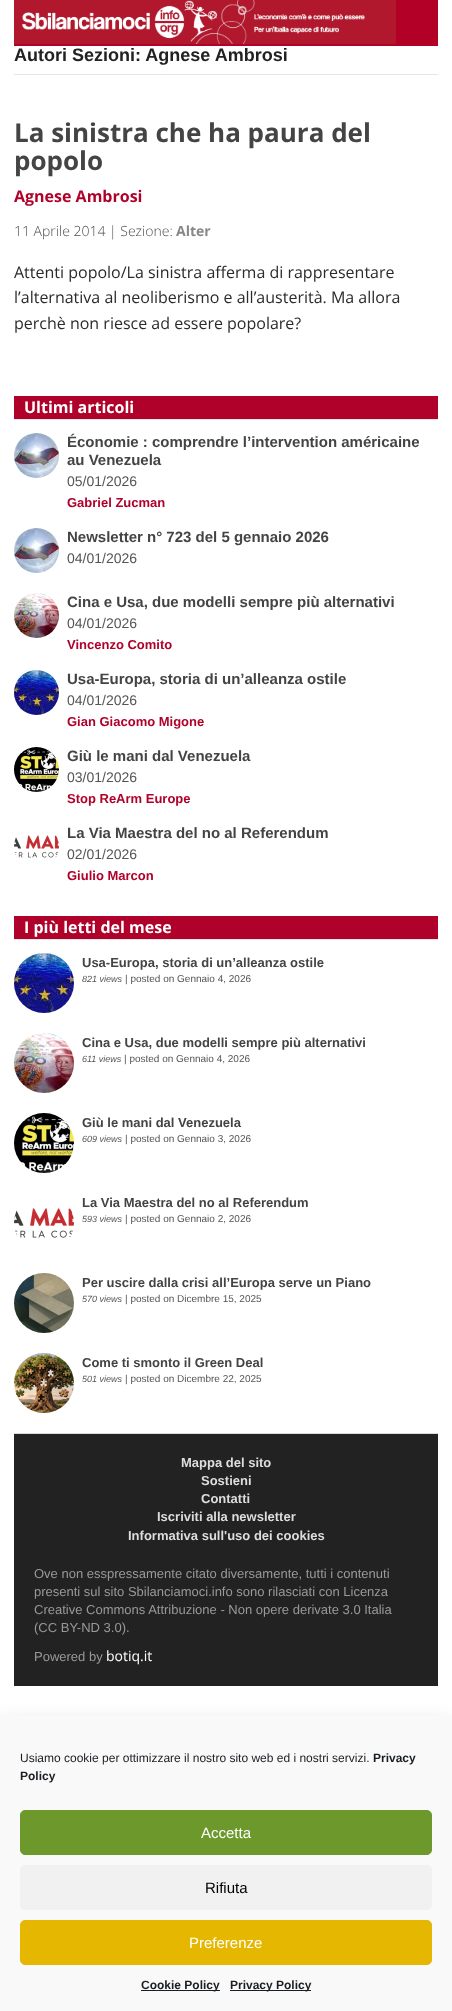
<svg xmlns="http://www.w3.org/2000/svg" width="452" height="2011">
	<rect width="100%" height="100%" fill="#FFFFFF" />
	<rect x="14" y="0" width="424" height="46" fill="#B30027" />
	<image x="14" y="0" width="382" height="44" href="assets/img1.png" />
	<rect x="14" y="74" width="424" height="1" fill="#E6E6E6" />
	<text x="14" y="61" font-family="Liberation Sans" font-size="18" font-weight="700" fill="#222222">Autori Sezioni: Agnese Ambrosi</text>
	<g font-family="Open Sans" font-size="26" font-weight="700" fill="#444444">
		<text x="14" y="142">La sinistra che ha paura del</text>
		<text x="14" y="170">popolo</text>
	</g>
	<text x="14" y="202" font-family="Open Sans" font-size="16" font-weight="700" fill="#B0012A">Agnese Ambrosi</text>
	<text x="14" y="236" font-family="Open Sans" font-size="14" font-weight="300" fill="#4C4C4C">11 Aprile 2014 | Sezione:</text>
	<text x="176" y="236" font-family="Open Sans" font-size="14" font-weight="700" fill="#888888">Alter</text>
	<g font-family="Open Sans" font-size="16" fill="#2B2B2B">
		<text x="14" y="278">Attenti popolo/La sinistra afferma di rappresentare</text>
		<text x="14" y="303">l’alternativa al neoliberismo e all’austerità. Ma allora</text>
		<text x="14" y="329">perchè non riesce ad essere popolare?</text>
	</g>
	<rect x="14" y="396" width="424" height="23" fill="#B0012A" />
	<rect x="14" y="419" width="424" height="1" fill="#E6E6E6" />
	<text x="24" y="413" font-family="Open Sans" font-size="16" font-weight="700" fill="#FFFFFF">Ultimi articoli</text>
	<image x="14" y="433" width="45" height="45" href="assets/img2.png" />
	<g font-family="Liberation Sans" font-size="15" font-weight="700" fill="#444444">
		<text x="67" y="447">Économie : comprendre l’intervention américaine</text>
		<text x="67" y="465">au Venezuela</text>
	</g>
	<text x="67" y="486" font-family="Liberation Sans" font-size="14" fill="#555555">05/01/2026</text>
	<text x="67" y="507" font-family="Liberation Sans" font-size="13" font-weight="700" fill="#B0012A">Gabriel Zucman</text>
	<image x="14" y="528" width="45" height="45" href="assets/img2.png" />
	<text x="67" y="542" font-family="Liberation Sans" font-size="15" font-weight="700" fill="#444444">Newsletter n° 723 del 5 gennaio 2026</text>
	<text x="67" y="563" font-family="Liberation Sans" font-size="14" fill="#555555">04/01/2026</text>
	<image x="14" y="593" width="45" height="45" href="assets/img3.png" />
	<text x="67" y="607" font-family="Liberation Sans" font-size="15" font-weight="700" fill="#444444">Cina e Usa, due modelli sempre più alternativi</text>
	<text x="67" y="628" font-family="Liberation Sans" font-size="14" fill="#555555">04/01/2026</text>
	<text x="67" y="649" font-family="Liberation Sans" font-size="13" font-weight="700" fill="#B0012A">Vincenzo Comito</text>
	<image x="14" y="670" width="45" height="45" href="assets/img4.png" />
	<text x="67" y="684" font-family="Liberation Sans" font-size="15" font-weight="700" fill="#444444">Usa-Europa, storia di un’alleanza ostile</text>
	<text x="67" y="705" font-family="Liberation Sans" font-size="14" fill="#555555">04/01/2026</text>
	<text x="67" y="726" font-family="Liberation Sans" font-size="13" font-weight="700" fill="#B0012A">Gian Giacomo Migone</text>
	<image x="14" y="747" width="45" height="45" href="assets/img5.png" />
	<text x="67" y="761" font-family="Liberation Sans" font-size="15" font-weight="700" fill="#444444">Giù le mani dal Venezuela</text>
	<text x="67" y="782" font-family="Liberation Sans" font-size="14" fill="#555555">03/01/2026</text>
	<text x="67" y="803" font-family="Liberation Sans" font-size="13" font-weight="700" fill="#B0012A">Stop ReArm Europe</text>
	<text x="67" y="838" font-family="Liberation Sans" font-size="15" font-weight="700" fill="#444444">La Via Maestra del no al Referendum</text>
	<image x="14" y="835" width="45" height="23" href="assets/img6.png" />
	<text x="67" y="859" font-family="Liberation Sans" font-size="14" fill="#555555">02/01/2026</text>
	<text x="67" y="880" font-family="Liberation Sans" font-size="13" font-weight="700" fill="#B0012A">Giulio Marcon</text>
	<rect x="14" y="916" width="424" height="23" fill="#B0012A" />
	<rect x="14" y="939" width="424" height="1" fill="#E6E6E6" />
	<text x="24" y="933" font-family="Open Sans" font-size="16" font-weight="700" fill="#FFFFFF">I più letti del mese</text>
	<image x="14" y="953" width="60" height="60" href="assets/img7.png" />
	<text x="82" y="967" font-family="Liberation Sans" font-size="13" font-weight="700" fill="#444444">Usa-Europa, storia di un’alleanza ostile</text>
	<text x="82" y="982" font-family="Liberation Sans" font-size="9" font-style="italic" fill="#555555">821 views</text>
	<text x="125" y="982" font-family="Liberation Sans" font-size="10" fill="#555555">| posted on Gennaio 4, 2026</text>
	<image x="14" y="1033" width="60" height="60" href="assets/img8.png" />
	<text x="82" y="1047" font-family="Liberation Sans" font-size="13" font-weight="700" fill="#444444">Cina e Usa, due modelli sempre più alternativi</text>
	<text x="82" y="1062" font-family="Liberation Sans" font-size="9" font-style="italic" fill="#555555">611 views</text>
	<text x="124" y="1062" font-family="Liberation Sans" font-size="10" fill="#555555">| posted on Gennaio 4, 2026</text>
	<image x="14" y="1113" width="60" height="60" href="assets/img9.png" />
	<text x="82" y="1127" font-family="Liberation Sans" font-size="13" font-weight="700" fill="#444444">Giù le mani dal Venezuela</text>
	<text x="82" y="1142" font-family="Liberation Sans" font-size="9" font-style="italic" fill="#555555">609 views</text>
	<text x="125" y="1142" font-family="Liberation Sans" font-size="10" fill="#555555">| posted on Gennaio 3, 2026</text>
	<text x="82" y="1207" font-family="Liberation Sans" font-size="13" font-weight="700" fill="#444444">La Via Maestra del no al Referendum</text>
	<image x="14" y="1208" width="60" height="30" href="assets/img10.png" />
	<text x="82" y="1222" font-family="Liberation Sans" font-size="9" font-style="italic" fill="#555555">593 views</text>
	<text x="125" y="1222" font-family="Liberation Sans" font-size="10" fill="#555555">| posted on Gennaio 2, 2026</text>
	<image x="14" y="1273" width="60" height="60" href="assets/img11.png" />
	<text x="82" y="1287" font-family="Liberation Sans" font-size="13" font-weight="700" fill="#444444">Per uscire dalla crisi all’Europa serve un Piano</text>
	<text x="82" y="1302" font-family="Liberation Sans" font-size="9" font-style="italic" fill="#555555">570 views</text>
	<text x="125" y="1302" font-family="Liberation Sans" font-size="10" fill="#555555">| posted on Dicembre 15, 2025</text>
	<image x="14" y="1353" width="60" height="60" href="assets/img12.png" />
	<text x="82" y="1367" font-family="Liberation Sans" font-size="13" font-weight="700" fill="#444444">Come ti smonto il Green Deal</text>
	<text x="82" y="1382" font-family="Liberation Sans" font-size="9" font-style="italic" fill="#555555">501 views</text>
	<text x="125" y="1382" font-family="Liberation Sans" font-size="10" fill="#555555">| posted on Dicembre 22, 2025</text>
	<rect x="14" y="1434" width="424" height="252" fill="#222222" />
	<rect x="14" y="1433" width="424" height="1" fill="#DBDBDB" />
	<g font-family="Liberation Sans" font-size="13" font-weight="700" fill="#DDDDDD">
		<text x="181" y="1467">Mappa del sito</text>
		<text x="201" y="1485">Sostieni</text>
		<text x="201" y="1503">Contatti</text>
		<text x="157" y="1521">Iscriviti alla newsletter</text>
		<text x="128" y="1540">Informativa sull'uso dei cookies</text>
	</g>
	<g font-family="Liberation Sans" font-size="13" fill="#999999">
		<text x="34" y="1578">Ove non esspressamente citato diversamente, tutti i contenuti</text>
		<text x="34" y="1596">presenti sul sito Sbilanciamoci.info sono rilasciati con Licenza</text>
		<text x="34" y="1614">Creative Commons Attribuzione - Non opere derivate 3.0 Italia</text>
		<text x="34" y="1632">(CC BY-ND 3.0).</text>
		<text x="34" y="1661">Powered by</text>
	</g>
	<text x="106" y="1661" font-family="Open Sans" font-size="14" fill="#FFFFFF">botiq.it</text>
	<rect x="0" y="1724" width="452" height="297" fill="#000000" fill-opacity="0.19" filter="blur(10px)" />
	<rect x="0" y="1715" width="452" height="296" fill="#F9F9F9" />
	<text x="20" y="1762" font-family="Liberation Sans" font-size="12" fill="#191E23">Usiamo cookie per ottimizzare il nostro sito web ed i nostri servizi.</text>
	<g font-family="Liberation Sans" font-size="12" font-weight="700" fill="#191E23">
		<text x="373" y="1762">Privacy</text>
		<text x="20" y="1780">Policy</text>
	</g>
	<rect x="20.5" y="1810.5" width="411" height="44" rx="4.5" fill="#6D992C" stroke="#6D992C" />
	<text x="201" y="1838" font-family="Liberation Sans" font-size="15" fill="#FFFFFF">Accetta</text>
	<rect x="20" y="1865" width="412" height="45" rx="5" fill="#F1F1F1" />
	<text x="205" y="1893" font-family="Liberation Sans" font-size="15" fill="#000000">Rifiuta</text>
	<rect x="20.5" y="1920.5" width="411" height="44" rx="4.5" fill="#E5B700" stroke="#E5B700" />
	<text x="189" y="1948" font-family="Liberation Sans" font-size="15" fill="#FFFFFF">Preferenze</text>
	<rect x="141" y="1990" width="79" height="1" fill="#191E23" />
	<text x="141" y="1989" font-family="Liberation Sans" font-size="12" font-weight="700" fill="#191E23">Cookie Policy</text>
	<rect x="230" y="1990" width="81" height="1" fill="#191E23" />
	<text x="230" y="1989" font-family="Liberation Sans" font-size="12" font-weight="700" fill="#191E23">Privacy Policy</text>
</svg>
